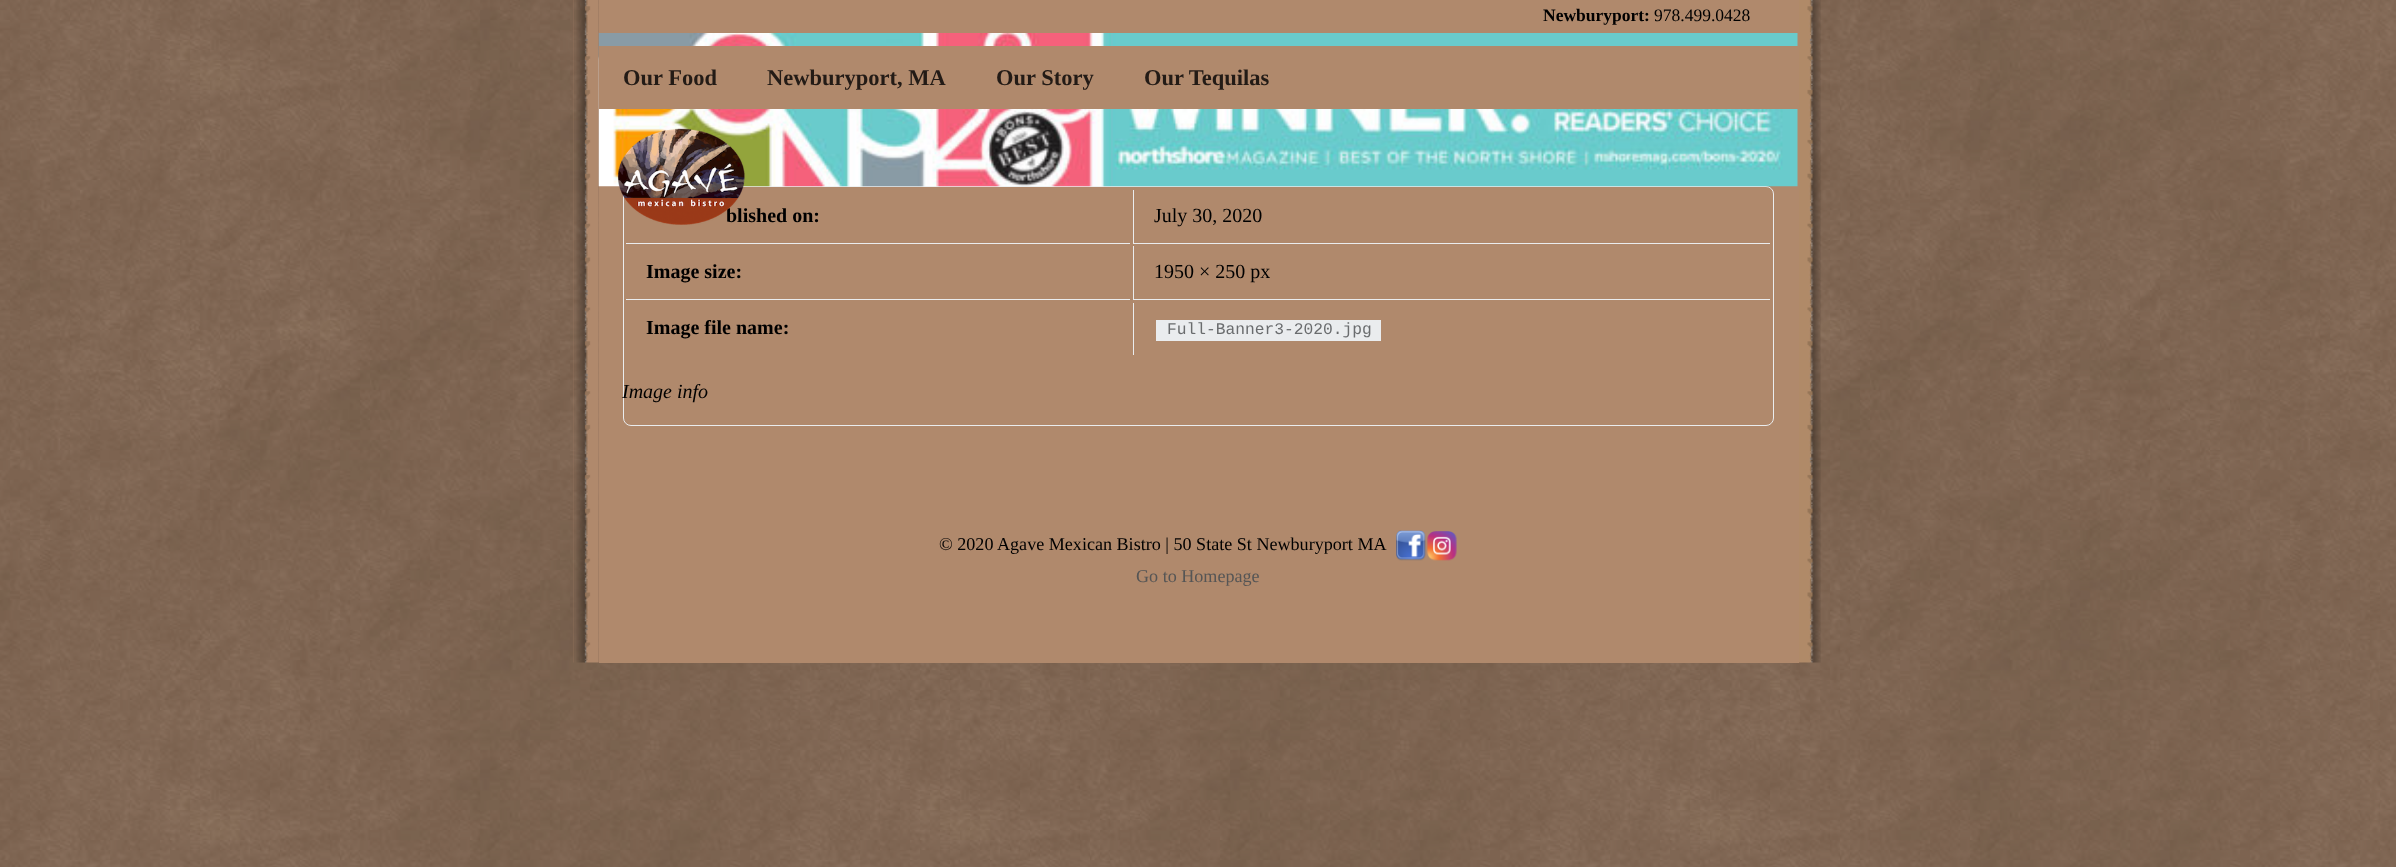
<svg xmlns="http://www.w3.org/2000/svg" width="2396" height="867">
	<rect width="100%" height="100%" fill="#FFFFFF" />
	<image x="0" y="0" width="2396" height="867" href="assets/img1.png" />
	<image x="573" y="0" width="26" height="663" href="assets/img2.png" />
	<image x="1799" y="0" width="22" height="663" href="assets/img3.png" />
	<rect x="599" y="33" width="1200" height="630" fill="#B0896C" />
	<rect x="623.5" y="186.5" width="1150" height="239" rx="7.5" fill="none" stroke="#EAECEE" />
	<image x="598" y="32" width="1200" height="155" href="assets/img5.png" />
	<rect x="599" y="0" width="1200" height="33" fill="#B0896C" />
	<text x="1543" y="21" font-family="Liberation Serif" font-size="17.5" font-weight="700" fill="#000000">Newburyport:</text>
	<text x="1654" y="21" font-family="Liberation Serif" font-size="17.5" fill="#000000">978.499.0428</text>
	<rect x="599" y="46" width="1199" height="63" fill="#B0896C" />
	<g font-family="Liberation Serif" font-size="22.5" font-weight="700" fill="#231B16">
		<text x="623" y="85">Our Food</text>
		<text x="767" y="85">Newburyport, MA</text>
		<text x="996" y="85">Our Story</text>
		<text x="1144" y="85">Our Tequilas</text>
	</g>
	<text x="726" y="222" font-family="Liberation Serif" font-size="20" font-weight="700" fill="#000000">blished on:</text>
	<image x="617" y="128" width="128" height="97" href="assets/img4.png" />
	<rect x="626" y="243" width="504" height="1" fill="#EAECEE" />
	<rect x="1133" y="243" width="637" height="1" fill="#EAECEE" />
	<rect x="1133" y="190" width="1" height="54" fill="#EAECEE" />
	<text x="1154" y="222" font-family="Liberation Serif" font-size="20" fill="#000000">July 30, 2020</text>
	<rect x="626" y="299" width="504" height="1" fill="#EAECEE" />
	<text x="646" y="278" font-family="Liberation Serif" font-size="20" font-weight="700" fill="#000000">Image size:</text>
	<rect x="1133" y="299" width="637" height="1" fill="#EAECEE" />
	<rect x="1133" y="246" width="1" height="54" fill="#EAECEE" />
	<text x="1154" y="278" font-family="Liberation Serif" font-size="20" fill="#000000">1950 × 250 px</text>
	<text x="646" y="334" font-family="Liberation Serif" font-size="20" font-weight="700" fill="#000000">Image file name:</text>
	<rect x="1133" y="303" width="1" height="52" fill="#EAECEE" />
	<rect x="1156" y="320" width="225" height="21" fill="#EAECEE" />
	<text x="1167" y="334" font-family="Liberation Mono" font-size="16.25" fill="#6A6C6E">Full-Banner3-2020.jpg</text>
	<text x="622" y="398" font-family="Liberation Serif" font-size="20" font-style="italic" fill="#000000">Image info</text>
	<text x="939" y="550" font-family="Liberation Serif" font-size="18.1" fill="#000000">© 2020 Agave Mexican Bistro | 50 State St Newburyport MA</text>
	<image x="1396" y="530" width="30" height="31" href="assets/img6.png" />
	<image x="1427" y="531" width="30" height="30" href="assets/img7.png" />
	<text x="1136" y="582" font-family="Liberation Serif" font-size="18.1" fill="#555555">Go to Homepage</text>
</svg>
